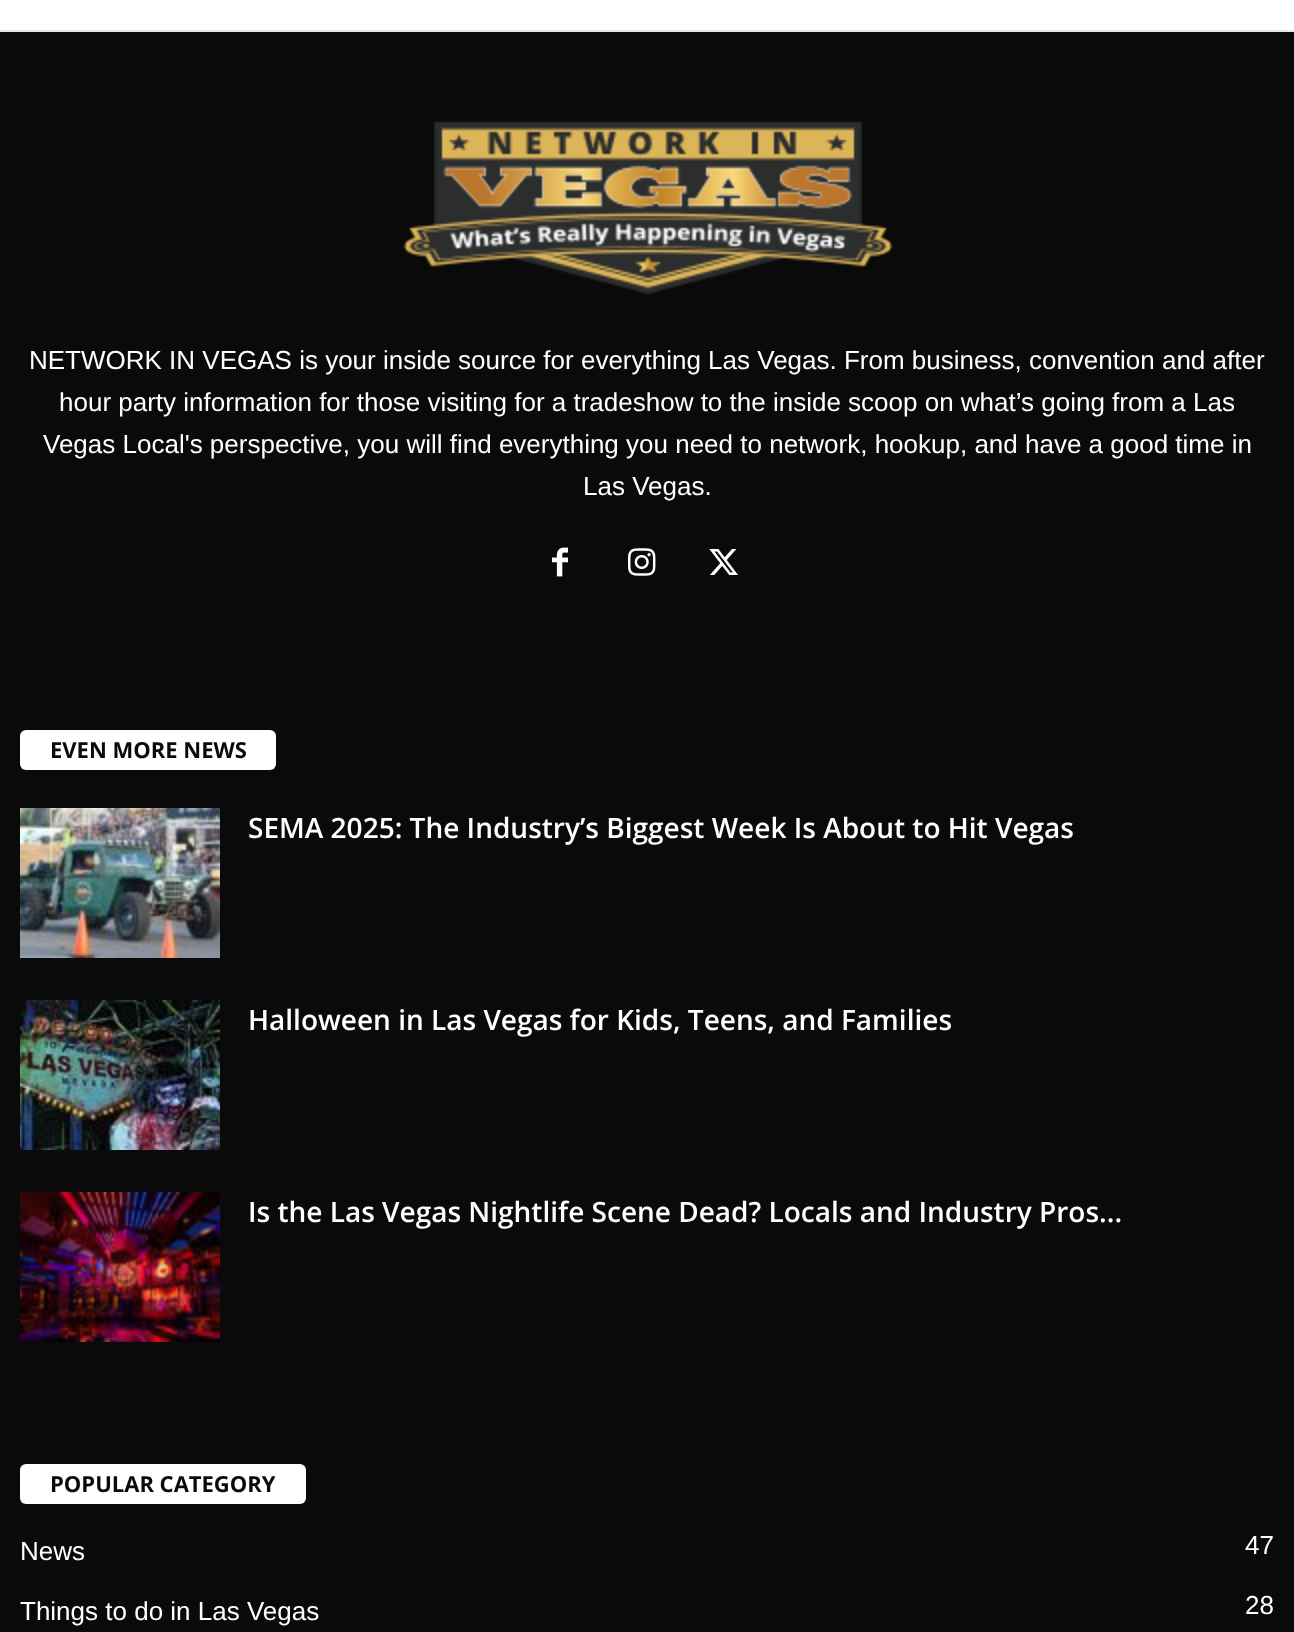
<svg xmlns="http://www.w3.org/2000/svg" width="1294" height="1632">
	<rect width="100%" height="100%" fill="#FFFFFF" />
	<rect x="0" y="30" width="1294" height="2" fill="#E6E6E6" />
	<rect x="0" y="32" width="1294" height="1600" fill="#0A0A0A" />
	<image x="403" y="121" width="490" height="174" href="assets/img1.png" />
	<g font-family="Liberation Sans" font-size="26" fill="#FFFFFF">
		<text x="29" y="369">NETWORK IN VEGAS is your inside source for everything Las Vegas. From business, convention and after</text>
		<text x="59" y="411">hour party information for those visiting for a tradeshow to the inside scoop on what’s going from a Las</text>
		<text x="43" y="453">Vegas Local's perspective, you will find everything you need to network, hookup, and have a good time in</text>
		<text x="583" y="495">Las Vegas.</text>
	</g>
	<image x="552" y="547" width="16" height="30" href="assets/img2.png" />
	<image x="628" y="548" width="28" height="28" href="assets/img3.png" />
	<image x="709" y="549" width="29" height="26" href="assets/img4.png" />
	<rect x="20" y="730" width="256" height="40" rx="6" fill="#FFFFFF" />
	<text x="50" y="758" font-family="Open Sans" font-size="22" font-weight="700" fill="#0A0A0A">EVEN MORE NEWS</text>
	<image x="20" y="808" width="200" height="150" href="assets/img5.png" />
	<text x="248" y="838" font-family="Open Sans" font-size="28" font-weight="600" fill="#FFFFFF">SEMA 2025: The Industry’s Biggest Week Is About to Hit Vegas</text>
	<image x="20" y="1000" width="200" height="150" href="assets/img6.png" />
	<text x="248" y="1030" font-family="Open Sans" font-size="28" font-weight="600" fill="#FFFFFF">Halloween in Las Vegas for Kids, Teens, and Families</text>
	<image x="20" y="1192" width="200" height="150" href="assets/img7.png" />
	<text x="248" y="1222" font-family="Open Sans" font-size="28" font-weight="600" fill="#FFFFFF">Is the Las Vegas Nightlife Scene Dead? Locals and Industry Pros...</text>
	<rect x="20" y="1464" width="286" height="40" rx="6" fill="#FFFFFF" />
	<text x="50" y="1492" font-family="Open Sans" font-size="22" font-weight="700" fill="#0A0A0A">POPULAR CATEGORY</text>
	<g font-family="Liberation Sans" font-size="26" fill="#FFFFFF">
		<text x="20" y="1560">News</text>
		<text x="1245" y="1554">47</text>
		<text x="20" y="1620">Things to do in Las Vegas</text>
		<text x="1245" y="1614">28</text>
	</g>
</svg>
